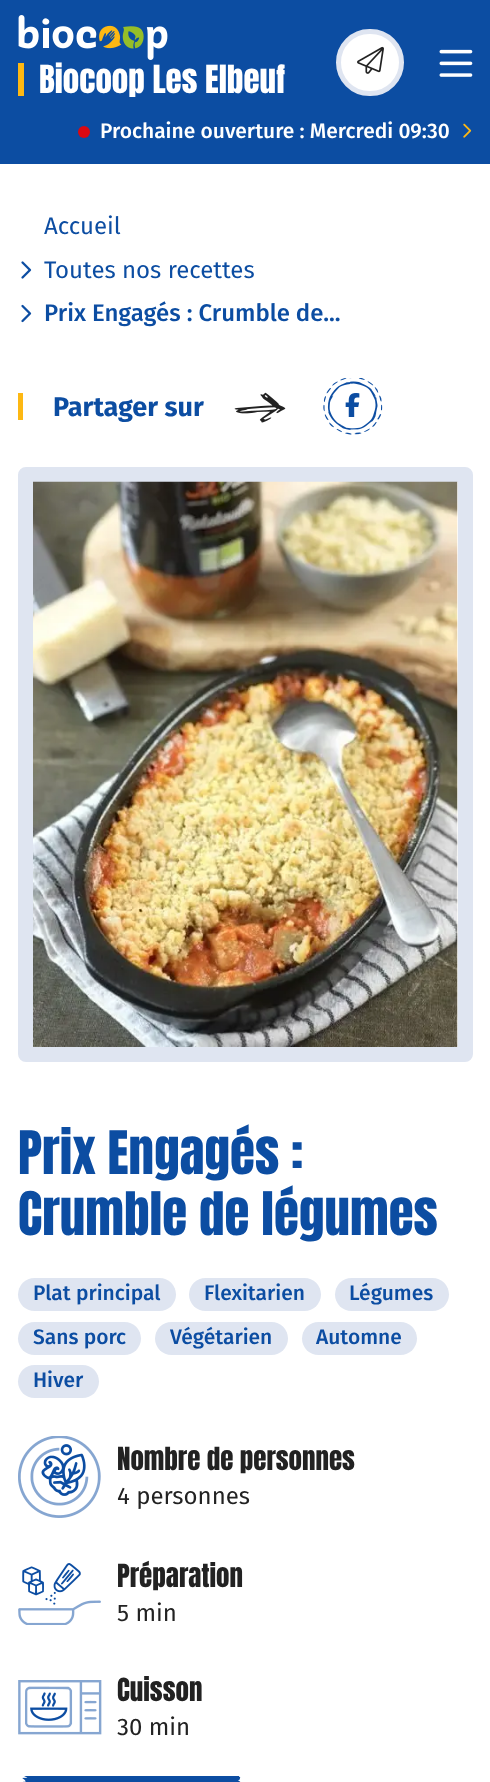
<svg xmlns="http://www.w3.org/2000/svg" width="490" height="1782">
	<rect width="100%" height="100%" fill="#FFFFFF" />
	<rect x="0" y="0" width="490" height="164" fill="#0C4DA2" />
	<image x="18" y="15" width="150" height="45" href="assets/img1.png" />
	<rect x="18" y="63" width="6" height="33" fill="#FDB813" />
	<text x="39" y="93" font-family="Anton" font-size="33" fill="#FFFFFF">Biocoop Les Elbeuf</text>
	<rect x="338.5" y="31.5" width="63" height="62" rx="31" fill="#FFFFFF" stroke="#DFE5F1" stroke-width="5" />
	<image x="357" y="46" width="27" height="28" href="assets/img2.png" />
	<image x="439" y="49" width="34" height="28" href="assets/img3.png" />
	<circle cx="84" cy="132" r="6" fill="#DA0812" />
	<text x="100" y="138" font-family="Fira Sans" font-size="21" font-weight="500" fill="#FFFFFF">Prochaine ouverture : Mercredi 09:30</text>
	<image x="463" y="123" width="9" height="15" href="assets/img4.png" />
	<text x="44" y="234" font-family="Fira Sans" font-size="24" fill="#0C4DA2">Accueil</text>
	<image x="21" y="261" width="11" height="18" href="assets/img5.png" />
	<text x="44" y="278" font-family="Fira Sans" font-size="24" fill="#0C4DA2">Toutes nos recettes</text>
	<image x="21" y="304" width="11" height="19" href="assets/img6.png" />
	<text x="44" y="321" font-family="Fira Sans" font-size="24" font-weight="500" fill="#0C4DA2">Prix Engagés : Crumble de...</text>
	<rect x="18" y="393" width="5" height="27" fill="#FDB813" />
	<text x="53" y="416" font-family="Fira Sans" font-size="27" font-weight="700" fill="#0C4DA2">Partager sur</text>
	<image x="234" y="392" width="52" height="31" href="assets/img7.png" />
	<image x="323" y="378" width="60" height="57" href="assets/img8.png" />
	<image x="345" y="393" width="15" height="24" href="assets/img9.png" />
	<rect x="25.5" y="474.5" width="440" height="580" rx="0.5" fill="none" stroke="#DFE5F1" stroke-width="15" />
	<image x="33" y="481" width="425" height="566" href="assets/img10.png" />
	<g font-family="Anton" font-size="51" fill="#0C4DA2">
		<text x="18" y="1174">Prix Engagés :</text>
		<text x="18" y="1235">Crumble de légumes</text>
	</g>
	<rect x="18" y="1278" width="158" height="33" rx="16.5" fill="#DFE5F1" />
	<text x="33" y="1300" font-family="Fira Sans" font-size="21" font-weight="500" fill="#0C4DA2">Plat principal</text>
	<rect x="189" y="1278" width="132" height="33" rx="16.5" fill="#DFE5F1" />
	<text x="204" y="1300" font-family="Fira Sans" font-size="21" font-weight="500" fill="#0C4DA2">Flexitarien</text>
	<rect x="335" y="1278" width="114" height="33" rx="16.5" fill="#DFE5F1" />
	<text x="349" y="1300" font-family="Fira Sans" font-size="21" font-weight="500" fill="#0C4DA2">Légumes</text>
	<rect x="18" y="1322" width="123" height="33" rx="16.5" fill="#DFE5F1" />
	<text x="33" y="1344" font-family="Fira Sans" font-size="21" font-weight="500" fill="#0C4DA2">Sans porc</text>
	<rect x="155" y="1322" width="133" height="33" rx="16.5" fill="#DFE5F1" />
	<text x="170" y="1344" font-family="Fira Sans" font-size="21" font-weight="500" fill="#0C4DA2">Végétarien</text>
	<rect x="302" y="1322" width="115" height="33" rx="16.5" fill="#DFE5F1" />
	<text x="316" y="1344" font-family="Fira Sans" font-size="21" font-weight="500" fill="#0C4DA2">Automne</text>
	<rect x="18" y="1365" width="81" height="33" rx="16.5" fill="#DFE5F1" />
	<text x="33" y="1387" font-family="Fira Sans" font-size="21" font-weight="500" fill="#0C4DA2">Hiver</text>
	<image x="18" y="1436" width="83" height="82" href="assets/img11.png" />
	<text x="117" y="1470" font-family="Anton" font-size="27" fill="#222222">Nombre de personnes</text>
	<text x="117" y="1504" font-family="Fira Sans" font-size="24" fill="#222222">4 personnes</text>
	<image x="18" y="1563" width="83" height="62" href="assets/img12.png" />
	<text x="117" y="1587" font-family="Anton" font-size="27" fill="#222222">Préparation</text>
	<text x="117" y="1621" font-family="Fira Sans" font-size="24" fill="#222222">5 min</text>
	<image x="18" y="1680" width="84" height="55" href="assets/img13.png" />
	<text x="117" y="1701" font-family="Anton" font-size="27" fill="#222222">Cuisson</text>
	<text x="117" y="1735" font-family="Fira Sans" font-size="24" fill="#222222">30 min</text>
	<image x="22" y="1776" width="219" height="6" href="assets/img14.png" />
</svg>
